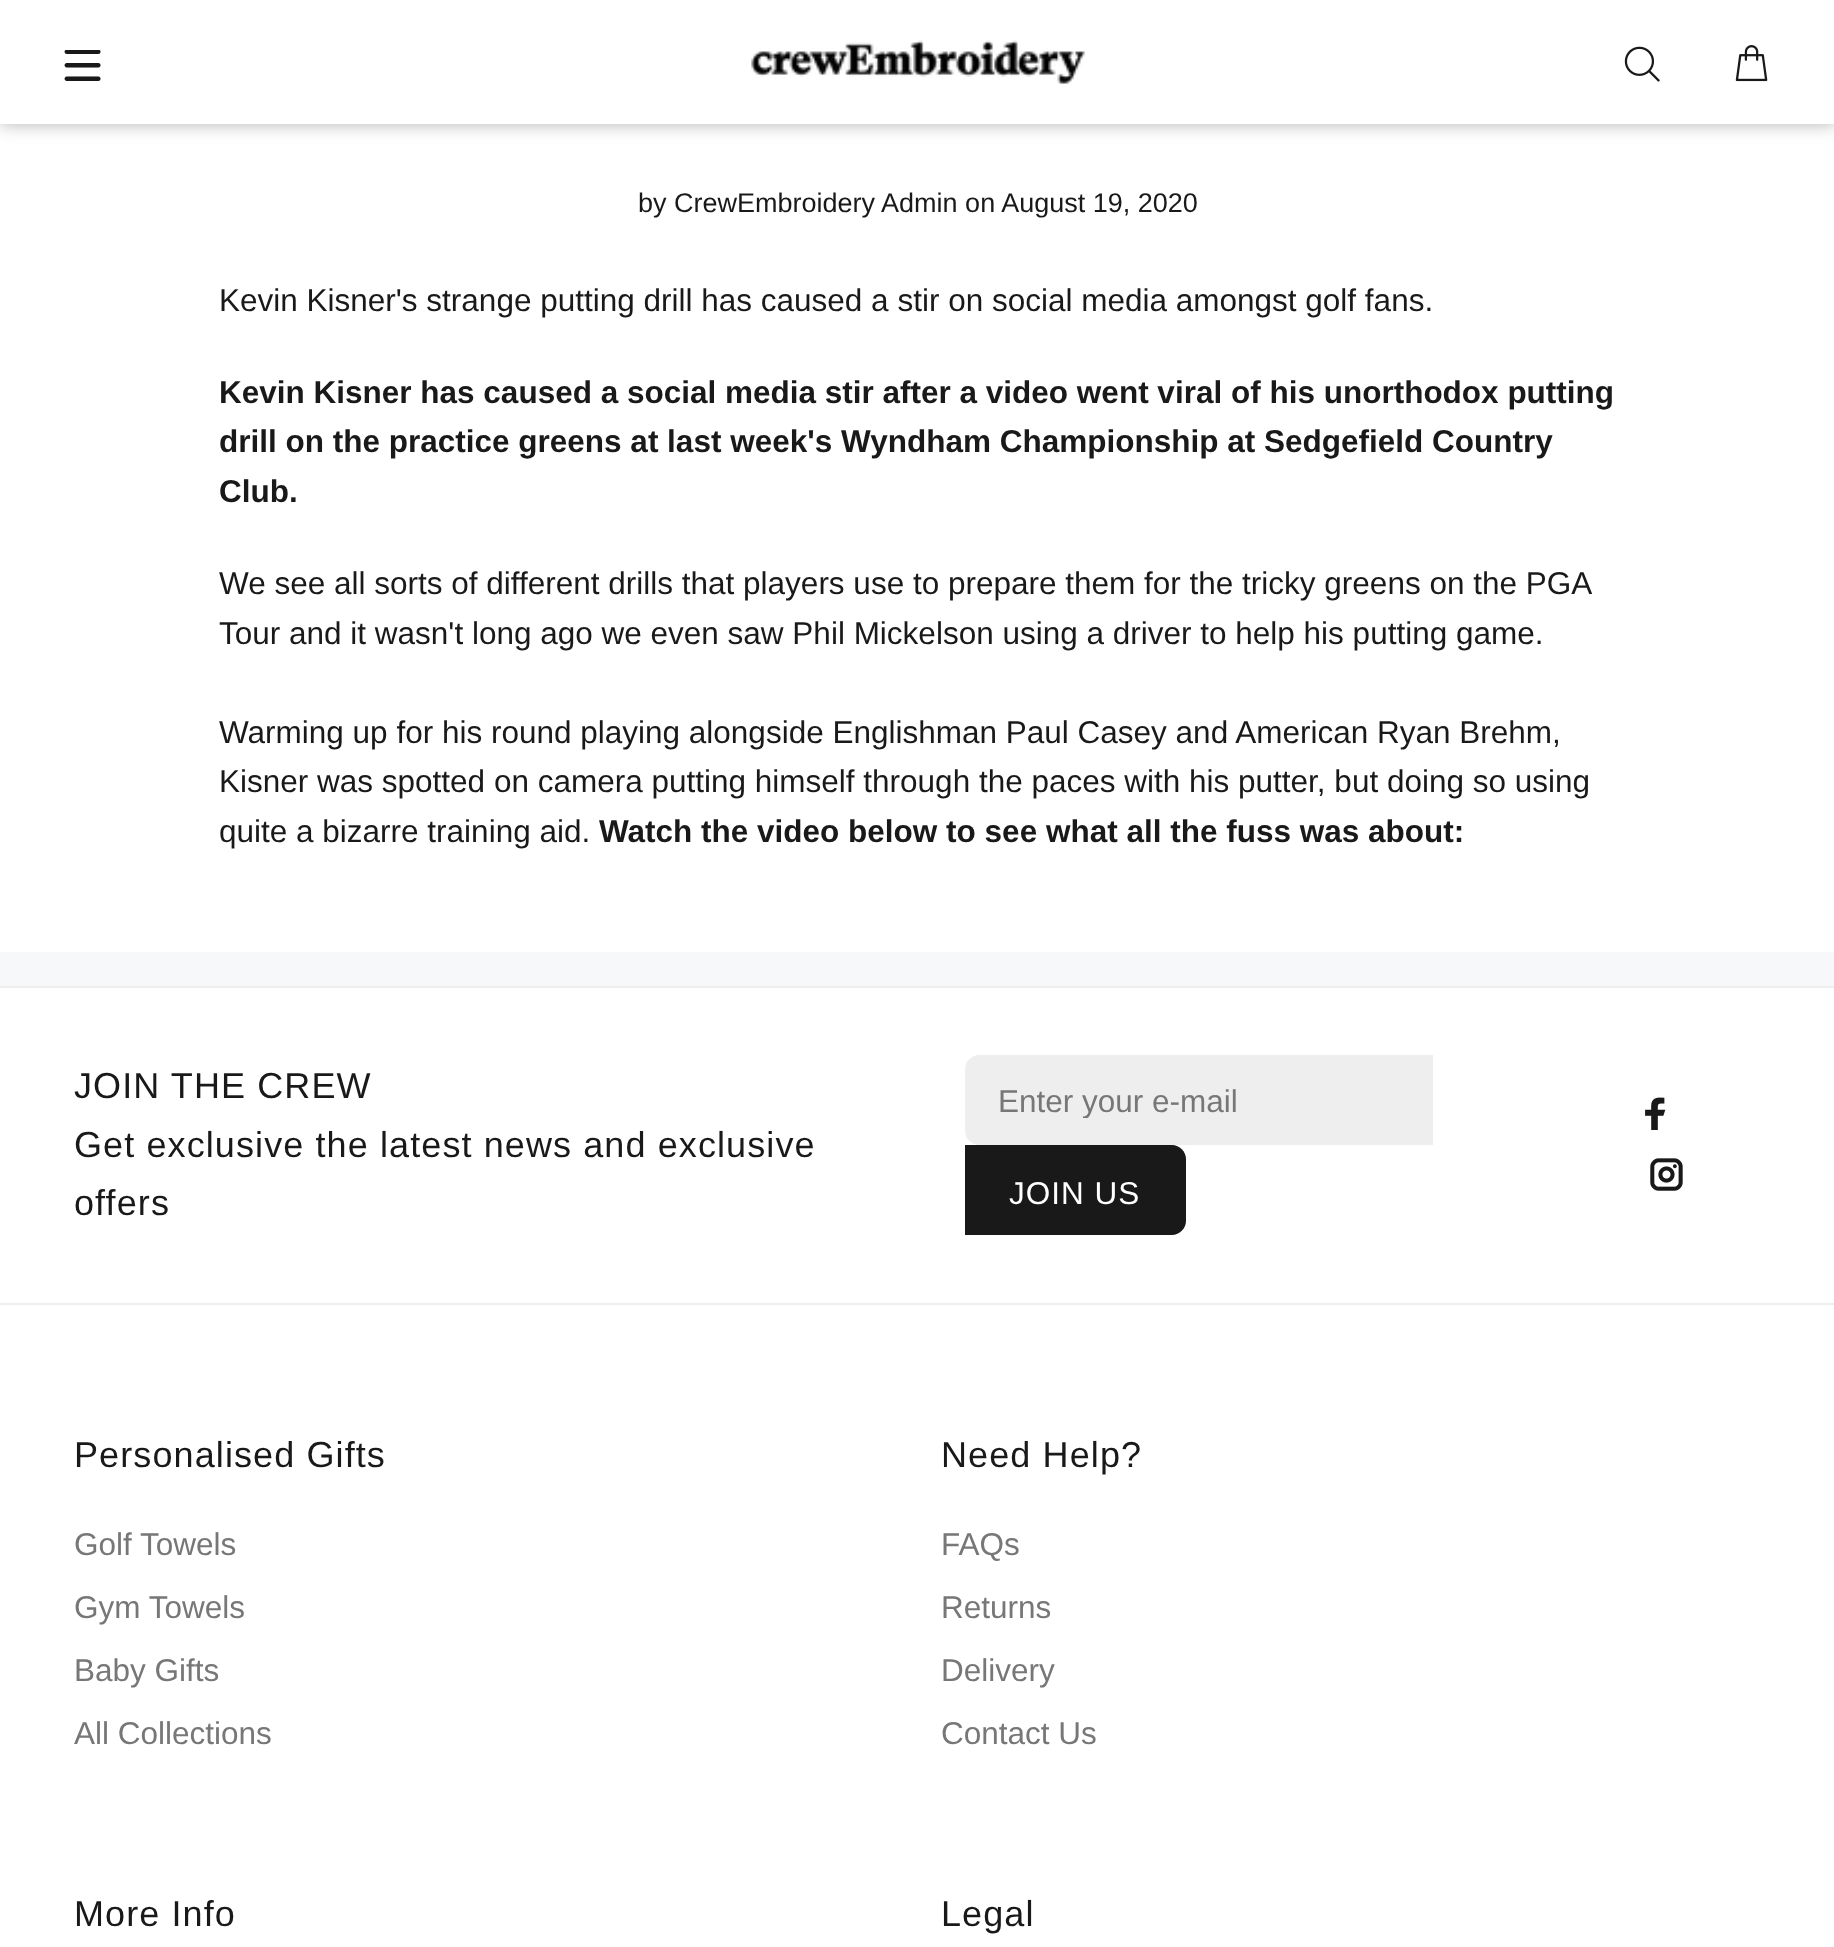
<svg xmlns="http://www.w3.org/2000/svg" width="1834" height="1947">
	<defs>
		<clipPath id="clip1"><rect x="999" y="1082" width="407" height="36" /></clipPath>
	</defs>
	<rect width="100%" height="100%" fill="#FFFFFF" />
	<rect x="0" y="0" width="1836" height="124" fill="#000000" fill-opacity="0.3" filter="blur(9px)" />
	<rect x="0" y="0" width="1834" height="124" fill="#FFFFFF" />
	<image x="64" y="50" width="37" height="31" href="assets/img1.png" />
	<image x="751" y="40" width="335" height="44" href="assets/img2.png" />
	<image x="1624" y="46" width="36" height="36" href="assets/img3.png" />
	<image x="1735" y="45" width="33" height="37" href="assets/img4.png" />
	<text x="638" y="212" font-family="Liberation Sans" font-size="27" fill="#191919">by CrewEmbroidery Admin on August 19, 2020</text>
	<text x="219" y="311" font-family="Liberation Sans" font-size="31.5" fill="#191919">Kevin Kisner's strange putting drill has caused a stir on social media amongst golf fans.</text>
	<g font-family="Liberation Sans" font-size="31.5" font-weight="700" fill="#191919">
		<text x="219" y="403">Kevin Kisner has caused a social media stir after a video went viral of his unorthodox putting</text>
		<text x="219" y="452">drill on the practice greens at last week's Wyndham Championship at Sedgefield Country</text>
		<text x="219" y="502">Club.</text>
	</g>
	<g font-family="Liberation Sans" font-size="31.5" fill="#191919">
		<text x="219" y="594">We see all sorts of different drills that players use to prepare them for the tricky greens on the PGA</text>
		<text x="219" y="644">Tour and it wasn't long ago we even saw Phil Mickelson using a driver to help his putting game.</text>
		<text x="219" y="743">Warming up for his round playing alongside Englishman Paul Casey and American Ryan Brehm,</text>
		<text x="219" y="792">Kisner was spotted on camera putting himself through the paces with his putter, but doing so using</text>
		<text x="219" y="842">quite a bizarre training aid.</text>
	</g>
	<text x="599" y="842" font-family="Liberation Sans" font-size="31.5" font-weight="700" fill="#191919">Watch the video below to see what all the fuss was about:</text>
	<rect x="0" y="952" width="1834" height="34" fill="#F7F8FA" />
	<rect x="0" y="986" width="1834" height="2" fill="#EEEEEE" />
	<g font-family="Liberation Sans" font-size="36" letter-spacing="1.1" fill="#191919">
		<text x="74" y="1098">JOIN THE CREW</text>
		<text x="74" y="1157">Get exclusive the latest news and exclusive</text>
		<text x="74" y="1215">offers</text>
	</g>
	<path d="M979 1055H1433V1145H979C971.5 1145 965 1138.5 965 1131V1069C965 1061.5 971.5 1055 979 1055Z" fill="#EEEEEE" />
	<g clip-path="url(#clip1)">
		<text x="998" y="1112" font-family="Liberation Sans" font-size="31.5" fill="#777777">Enter your e-mail</text>
	</g>
	<path d="M965 1145H1172C1179.5 1145 1186 1151.5 1186 1159V1221C1186 1228.5 1179.5 1235 1172 1235H965Z" fill="#191919" />
	<text x="1009" y="1204" font-family="Liberation Sans" font-size="31.5" letter-spacing="1" fill="#FFFFFF">JOIN US</text>
	<image x="1645" y="1097" width="21" height="33" href="assets/img5.png" />
	<image x="1650" y="1158" width="33" height="33" href="assets/img6.png" />
	<rect x="0" y="1303" width="1834" height="2" fill="#EEEEEE" />
	<text x="74" y="1467" font-family="Liberation Sans" font-size="36" letter-spacing="1.1" fill="#191919">Personalised Gifts</text>
	<g font-family="Liberation Sans" font-size="31.5" fill="#777777">
		<text x="74" y="1555">Golf Towels</text>
		<text x="74" y="1618">Gym Towels</text>
		<text x="74" y="1681">Baby Gifts</text>
		<text x="74" y="1744">All Collections</text>
	</g>
	<text x="941" y="1467" font-family="Liberation Sans" font-size="36" letter-spacing="1.1" fill="#191919">Need Help?</text>
	<g font-family="Liberation Sans" font-size="31.5" fill="#777777">
		<text x="941" y="1555">FAQs</text>
		<text x="941" y="1618">Returns</text>
		<text x="941" y="1681">Delivery</text>
		<text x="941" y="1744">Contact Us</text>
	</g>
	<g font-family="Liberation Sans" font-size="36" letter-spacing="1.1" fill="#191919">
		<text x="74" y="1926">More Info</text>
		<text x="941" y="1926">Legal</text>
	</g>
</svg>
